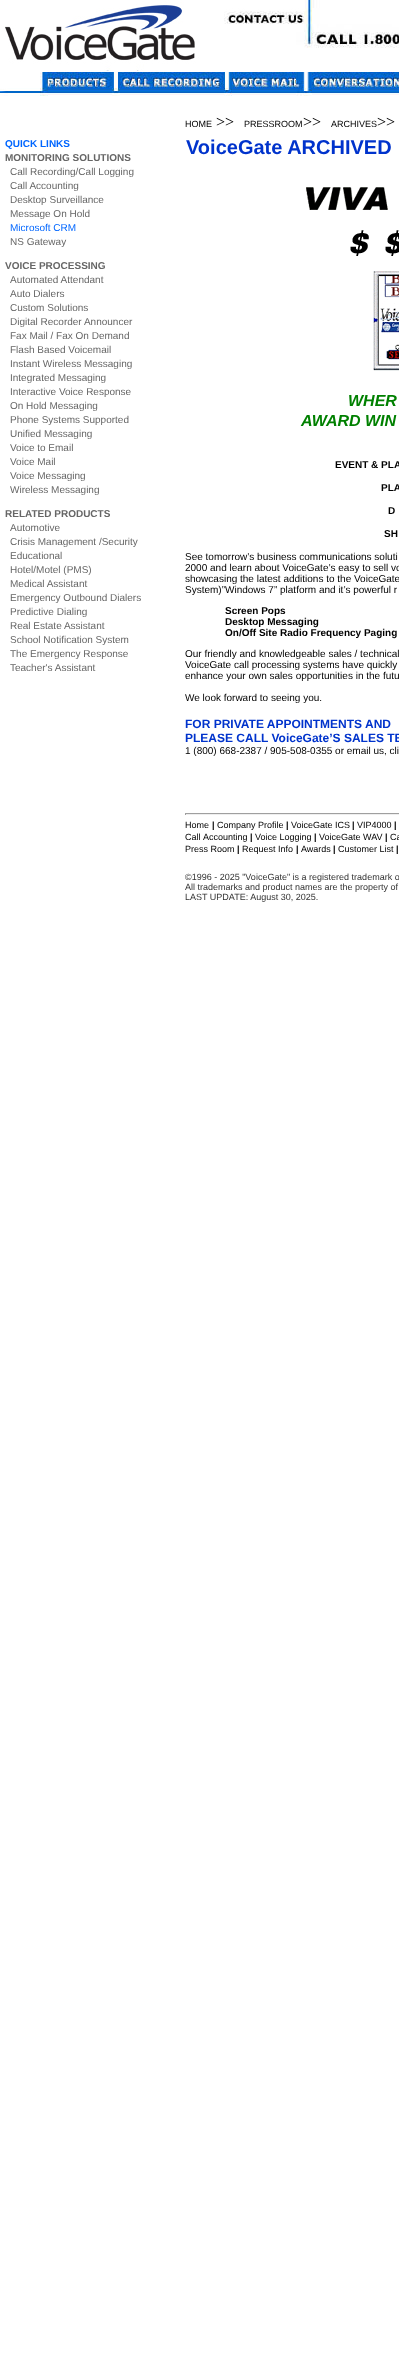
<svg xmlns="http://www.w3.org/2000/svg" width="399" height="2361">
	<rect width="100%" height="100%" fill="#FFFFFF" />
	<image x="0" y="0" width="399" height="96" href="assets/img1.png" />
	<text x="5" y="147" font-family="Liberation Sans" font-size="10" font-weight="700" fill="#0066FF">QUICK LINKS</text>
	<text x="5" y="161" font-family="Liberation Sans" font-size="10" font-weight="700" fill="#666666">MONITORING SOLUTIONS</text>
	<g font-family="Liberation Sans" font-size="10" fill="#666666">
		<text x="10" y="175">Call Recording/Call Logging</text>
		<text x="10" y="189">Call Accounting</text>
		<text x="10" y="203">Desktop Surveillance</text>
		<text x="10" y="217">Message On Hold</text>
	</g>
	<text x="10" y="231" font-family="Liberation Sans" font-size="10" fill="#0066FF">Microsoft CRM</text>
	<text x="10" y="245" font-family="Liberation Sans" font-size="10" fill="#666666">NS Gateway</text>
	<text x="5" y="269" font-family="Liberation Sans" font-size="10" font-weight="700" fill="#666666">VOICE PROCESSING</text>
	<g font-family="Liberation Sans" font-size="10" fill="#666666">
		<text x="10" y="283">Automated Attendant</text>
		<text x="10" y="297">Auto Dialers</text>
		<text x="10" y="311">Custom Solutions</text>
		<text x="10" y="325">Digital Recorder Announcer</text>
		<text x="10" y="339">Fax Mail / Fax On Demand</text>
		<text x="10" y="353">Flash Based Voicemail</text>
		<text x="10" y="367">Instant Wireless Messaging</text>
		<text x="10" y="381">Integrated Messaging</text>
		<text x="10" y="395">Interactive Voice Response</text>
		<text x="10" y="409">On Hold Messaging</text>
		<text x="10" y="423">Phone Systems Supported</text>
		<text x="10" y="437">Unified Messaging</text>
		<text x="10" y="451">Voice to Email</text>
		<text x="10" y="465">Voice Mail</text>
		<text x="10" y="479">Voice Messaging</text>
		<text x="10" y="493">Wireless Messaging</text>
	</g>
	<text x="5" y="517" font-family="Liberation Sans" font-size="10" font-weight="700" fill="#666666">RELATED PRODUCTS</text>
	<g font-family="Liberation Sans" font-size="10" fill="#666666">
		<text x="10" y="531">Automotive</text>
		<text x="10" y="545">Crisis Management /Security</text>
		<text x="10" y="559">Educational</text>
		<text x="10" y="573">Hotel/Motel (PMS)</text>
		<text x="10" y="587">Medical Assistant</text>
		<text x="10" y="601">Emergency Outbound Dialers</text>
		<text x="10" y="615">Predictive Dialing</text>
		<text x="10" y="629">Real Estate Assistant</text>
		<text x="10" y="643">School Notification System</text>
		<text x="10" y="657">The Emergency Response</text>
		<text x="10" y="671">Teacher's Assistant</text>
	</g>
	<text x="185" y="127" font-family="Liberation Sans" font-size="9" fill="#000000">HOME</text>
	<text x="216" y="127" font-family="Liberation Serif" font-size="16" fill="#000000">&gt;&gt;</text>
	<text x="244" y="127" font-family="Liberation Sans" font-size="9" fill="#000000">PRESSROOM</text>
	<text x="303" y="127" font-family="Liberation Serif" font-size="16" fill="#000000">&gt;&gt;</text>
	<text x="331" y="127" font-family="Liberation Sans" font-size="9" fill="#000000">ARCHIVES</text>
	<text x="377" y="127" font-family="Liberation Serif" font-size="16" fill="#000000">&gt;&gt;</text>
	<text x="186" y="154" font-family="Liberation Sans" font-size="20" font-weight="700" fill="#0033CC">VoiceGate ARCHIVED</text>
	<image x="306" y="187" width="93" height="184" href="assets/img2.png" />
	<g font-family="Liberation Sans" font-size="16" font-weight="700" font-style="italic" fill="#008000">
		<text x="348" y="406">WHER</text>
		<text x="301" y="426">AWARD WIN</text>
	</g>
	<g font-family="Liberation Sans" font-size="10" font-weight="700" fill="#000000">
		<text x="335" y="468">EVENT &amp; PLA</text>
		<text x="381" y="491">PLA</text>
		<text x="388" y="514">D</text>
		<text x="384" y="537">SH</text>
	</g>
	<g font-family="Liberation Sans" font-size="10" fill="#000000">
		<text x="185" y="560">See tomorrow’s business communications soluti</text>
		<text x="185" y="571">2000 and learn about VoiceGate’s easy to sell vo</text>
		<text x="185" y="582">showcasing the latest additions to the VoiceGate</text>
		<text x="185" y="593">System)”Windows 7” platform and it’s powerful r</text>
	</g>
	<g font-family="Liberation Sans" font-size="10" font-weight="700" fill="#000000">
		<text x="225" y="614">Screen Pops</text>
		<text x="225" y="625">Desktop Messaging</text>
		<text x="225" y="636">On/Off Site Radio Frequency Paging</text>
	</g>
	<g font-family="Liberation Sans" font-size="10" fill="#000000">
		<text x="185" y="657">Our friendly and knowledgeable sales / technical</text>
		<text x="185" y="668">VoiceGate call processing systems have quickly</text>
		<text x="185" y="679">enhance your own sales opportunities in the futu</text>
		<text x="185" y="701">We look forward to seeing you.</text>
	</g>
	<g font-family="Liberation Sans" font-size="12" font-weight="700" fill="#0033CC">
		<text x="185" y="728">FOR PRIVATE APPOINTMENTS AND</text>
		<text x="185" y="742">PLEASE CALL VoiceGate’S SALES TE</text>
	</g>
	<text x="185" y="754" font-family="Liberation Sans" font-size="10" fill="#000000">1 (800) 668-2387 / 905-508-0355 or email us, cli</text>
	<rect x="185" y="813" width="214" height="1" fill="#9F9F9F" />
	<rect x="185" y="814" width="214" height="1" fill="#EEEEEE" />
	<rect x="185" y="813" width="1" height="2" fill="#9F9F9F" />
	<text x="185" y="828" font-family="Liberation Sans" font-size="9" fill="#000000">Home</text>
	<text x="212" y="828" font-family="Liberation Sans" font-size="9" font-weight="700" fill="#000000">|</text>
	<text x="217" y="828" font-family="Liberation Sans" font-size="9" fill="#000000">Company Profile</text>
	<text x="286" y="828" font-family="Liberation Sans" font-size="9" font-weight="700" fill="#000000">|</text>
	<text x="291" y="828" font-family="Liberation Sans" font-size="9" fill="#000000">VoiceGate ICS</text>
	<text x="352" y="828" font-family="Liberation Sans" font-size="9" font-weight="700" fill="#000000">|</text>
	<text x="357" y="828" font-family="Liberation Sans" font-size="9" fill="#000000">VIP4000</text>
	<text x="394" y="828" font-family="Liberation Sans" font-size="9" font-weight="700" fill="#000000">|</text>
	<g font-family="Liberation Sans" font-size="9" fill="#000000">
		<text x="185" y="840">Call</text>
		<text x="203" y="840">Accounting</text>
	</g>
	<text x="250" y="840" font-family="Liberation Sans" font-size="9" font-weight="700" fill="#000000">|</text>
	<text x="255" y="840" font-family="Liberation Sans" font-size="9" fill="#000000">Voice Logging</text>
	<text x="314" y="840" font-family="Liberation Sans" font-size="9" font-weight="700" fill="#000000">|</text>
	<text x="319" y="840" font-family="Liberation Sans" font-size="9" fill="#000000">VoiceGate WAV</text>
	<text x="385" y="840" font-family="Liberation Sans" font-size="9" font-weight="700" fill="#000000">|</text>
	<g font-family="Liberation Sans" font-size="9" fill="#000000">
		<text x="390" y="840">Ca</text>
		<text x="185" y="852">Press Room</text>
	</g>
	<text x="237" y="852" font-family="Liberation Sans" font-size="9" font-weight="700" fill="#000000">|</text>
	<text x="242" y="852" font-family="Liberation Sans" font-size="9" fill="#000000">Request Info</text>
	<text x="296" y="852" font-family="Liberation Sans" font-size="9" font-weight="700" fill="#000000">|</text>
	<text x="301" y="852" font-family="Liberation Sans" font-size="9" fill="#000000">Awards</text>
	<text x="333" y="852" font-family="Liberation Sans" font-size="9" font-weight="700" fill="#000000">|</text>
	<text x="338" y="852" font-family="Liberation Sans" font-size="9" fill="#000000">Customer List</text>
	<text x="396" y="852" font-family="Liberation Sans" font-size="9" font-weight="700" fill="#000000">|</text>
	<g font-family="Liberation Sans" font-size="9" fill="#333333">
		<text x="185" y="880">©1996 - 2025 "VoiceGate" is a registered trademark o</text>
		<text x="185" y="890">All trademarks and product names are the property of</text>
		<text x="185" y="900">LAST UPDATE: August 30, 2025.</text>
	</g>
</svg>
